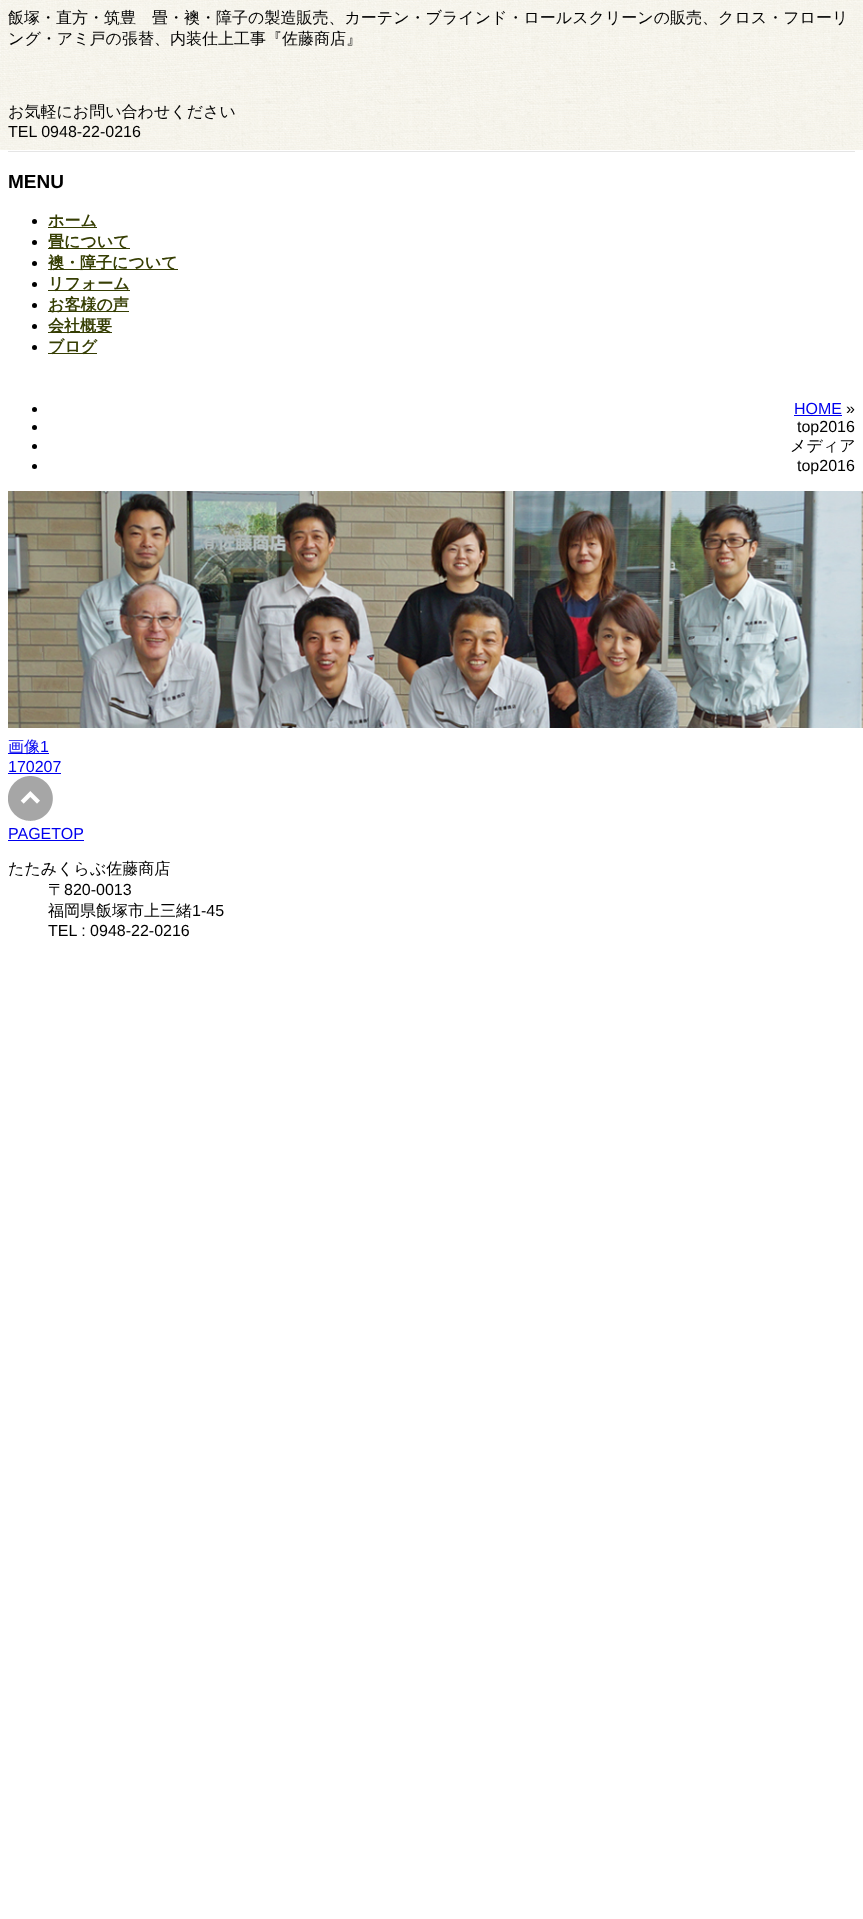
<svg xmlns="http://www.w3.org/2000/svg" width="863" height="1919">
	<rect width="100%" height="100%" fill="#FFFFFF" />
	<image x="0" y="0" width="863" height="150" href="assets/img1.png" />
	<g font-family="WenQuanYi Zen Hei" font-size="16" font-weight="500" fill="#000000">
		<text x="8" y="23">飯塚・直方・筑豊　畳・襖・障子の製造販売、カーテン・ブラインド・ロールスクリーンの販売、クロス・フローリ</text>
		<text x="8" y="44">ング・アミ戸の張替、内装仕上工事『佐藤商店』</text>
		<text x="8" y="117">お気軽にお問い合わせください</text>
	</g>
	<text x="8" y="137" font-family="Liberation Sans" font-size="16" fill="#000000">TEL 0948-22-0216</text>
	<rect x="8" y="151" width="847" height="1" fill="#E5E5E5" />
	<text x="8" y="188" font-family="Liberation Sans" font-size="19" font-weight="700" fill="#000000">MENU</text>
	<circle cx="34.5" cy="221.5" r="2.5" fill="#000000" />
	<rect x="48" y="227" width="49" height="1" fill="#363E03" />
	<text x="48" y="226" font-family="WenQuanYi Zen Hei" font-size="16" font-weight="700" fill="#363E03">ホーム</text>
	<circle cx="34.5" cy="242.5" r="2.5" fill="#000000" />
	<rect x="48" y="248" width="82" height="1" fill="#363E03" />
	<text x="48" y="247" font-family="WenQuanYi Zen Hei" font-size="16" font-weight="700" fill="#363E03">畳について</text>
	<circle cx="34.5" cy="263.5" r="2.5" fill="#000000" />
	<rect x="48" y="269" width="130" height="1" fill="#363E03" />
	<text x="48" y="268" font-family="WenQuanYi Zen Hei" font-size="16" font-weight="700" fill="#363E03">襖・障子について</text>
	<circle cx="34.5" cy="284.5" r="2.5" fill="#000000" />
	<rect x="48" y="290" width="82" height="1" fill="#363E03" />
	<text x="48" y="289" font-family="WenQuanYi Zen Hei" font-size="16" font-weight="700" fill="#363E03">リフォーム</text>
	<circle cx="34.5" cy="305.5" r="2.5" fill="#000000" />
	<rect x="48" y="311" width="81" height="1" fill="#363E03" />
	<text x="48" y="310" font-family="WenQuanYi Zen Hei" font-size="16" font-weight="700" fill="#363E03">お客様の声</text>
	<circle cx="34.5" cy="326.5" r="2.5" fill="#000000" />
	<rect x="48" y="332" width="64" height="1" fill="#363E03" />
	<text x="48" y="331" font-family="WenQuanYi Zen Hei" font-size="16" font-weight="700" fill="#363E03">会社概要</text>
	<circle cx="34.5" cy="347.5" r="2.5" fill="#000000" />
	<rect x="48" y="353" width="49" height="1" fill="#363E03" />
	<text x="48" y="352" font-family="WenQuanYi Zen Hei" font-size="16" font-weight="700" fill="#363E03">ブログ</text>
	<circle cx="34.5" cy="409.5" r="2.5" fill="#000000" />
	<text x="794" y="414" font-family="Liberation Sans" font-size="16" fill="#0000EE">HOME</text>
	<rect x="794" y="415" width="48" height="1" fill="#0000EE" />
	<text x="846" y="414" font-family="Liberation Sans" font-size="16" fill="#000000">»</text>
	<circle cx="34.5" cy="427.5" r="2.5" fill="#000000" />
	<text x="797" y="432" font-family="Liberation Sans" font-size="16" fill="#000000">top2016</text>
	<circle cx="34.5" cy="446.5" r="2.5" fill="#000000" />
	<text x="790" y="451" font-family="WenQuanYi Zen Hei" font-size="16" font-weight="500" fill="#000000">メディア</text>
	<circle cx="34.5" cy="466.5" r="2.5" fill="#000000" />
	<text x="797" y="471" font-family="Liberation Sans" font-size="16" fill="#000000">top2016</text>
	<image x="8" y="491" width="855" height="237" href="assets/img2.png" />
	<rect x="8" y="753" width="41" height="1" fill="#0000EE" />
	<text x="8" y="752" font-family="WenQuanYi Zen Hei" font-size="16" font-weight="500" fill="#0000EE">画像</text>
	<g font-family="Liberation Sans" font-size="16" fill="#0000EE">
		<text x="40" y="752">1</text>
		<text x="8" y="772">170207</text>
	</g>
	<rect x="8" y="773" width="53" height="1" fill="#0000EE" />
	<image x="8" y="776" width="45" height="45" href="assets/img3.png" />
	<text x="8" y="839" font-family="Liberation Sans" font-size="16" fill="#0000EE">PAGETOP</text>
	<rect x="8" y="840" width="76" height="1" fill="#0000EE" />
	<g font-family="WenQuanYi Zen Hei" font-size="16" font-weight="500" fill="#000000">
		<text x="8" y="874">たたみくらぶ佐藤商店</text>
		<text x="48" y="895">〒</text>
	</g>
	<text x="64" y="895" font-family="Liberation Sans" font-size="16" fill="#000000">820-0013</text>
	<text x="48" y="916" font-family="WenQuanYi Zen Hei" font-size="16" font-weight="500" fill="#000000">福岡県飯塚市上三緒</text>
	<g font-family="Liberation Sans" font-size="16" fill="#000000">
		<text x="192" y="916">1-45</text>
		<text x="48" y="936">TEL : 0948-22-0216</text>
	</g>
</svg>
